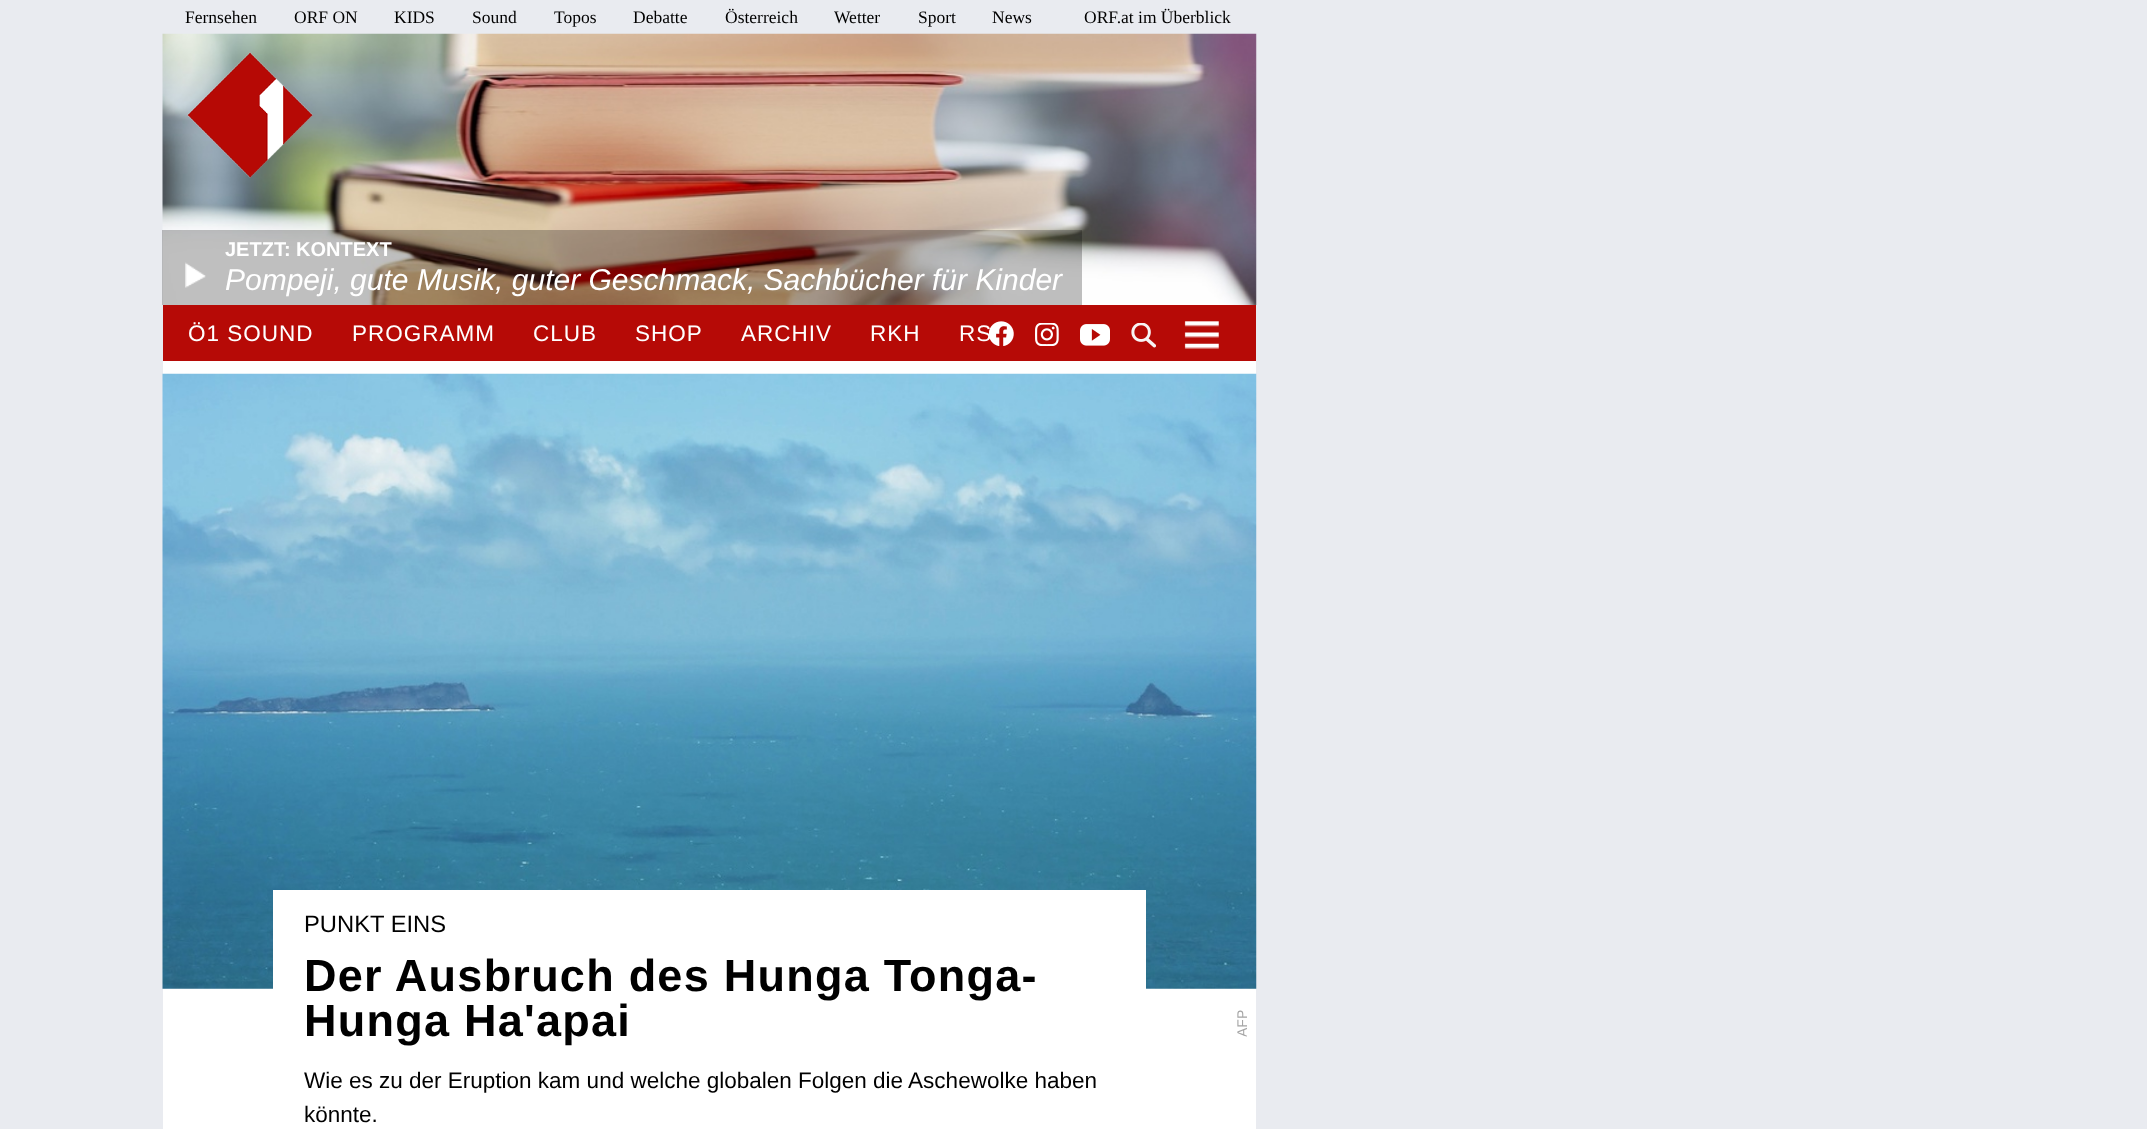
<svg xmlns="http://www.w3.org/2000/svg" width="2147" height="1129">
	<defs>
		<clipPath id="clip1"><path d="M1235 1036.5V1010H1250V1036.5Z" /></clipPath>
	</defs>
	<rect width="100%" height="100%" fill="#E9EBF0" />
	<rect x="163" y="361" width="1093" height="768" fill="#FFFFFF" />
	<g font-family="Liberation Serif" font-size="17.5" fill="#000000">
		<text x="185" y="23">Fernsehen</text>
		<text x="294" y="23">ORF ON</text>
		<text x="394" y="23">KIDS</text>
		<text x="472" y="23">Sound</text>
		<text x="554" y="23">Topos</text>
		<text x="633" y="23">Debatte</text>
		<text x="725" y="23">Österreich</text>
		<text x="834" y="23">Wetter</text>
		<text x="918" y="23">Sport</text>
		<text x="992" y="23">News</text>
		<text x="1084" y="23">ORF.at im Überblick</text>
	</g>
	<image x="162" y="33" width="1095" height="272" href="assets/img2.png" />
	<image x="187" y="52" width="126" height="126" href="assets/img1.png" />
	<rect x="162" y="230" width="920" height="75" fill="#000000" fill-opacity="0.25" />
	<text x="225" y="256" font-family="Liberation Sans" font-size="20" font-weight="700" fill="#FFFFFF">JETZT: KONTEXT</text>
	<image x="185" y="262" width="21" height="26" href="assets/img3.png" />
	<text x="225" y="290" font-family="Liberation Sans" font-size="30" font-style="italic" fill="#FFFFFF">Pompeji, gute Musik, guter Geschmack, Sachbücher für Kinder</text>
	<rect x="163" y="305" width="1093" height="56" fill="#B60A06" />
	<g font-family="Liberation Sans" font-size="22.5" letter-spacing="1" fill="#FFFFFF">
		<text x="188" y="341">Ö1 SOUND</text>
		<text x="352" y="341">PROGRAMM</text>
		<text x="533" y="341">CLUB</text>
		<text x="635" y="341">SHOP</text>
		<text x="741" y="341">ARCHIV</text>
		<text x="870" y="341">RKH</text>
		<text x="959" y="341">RS</text>
	</g>
	<image x="989" y="321" width="25" height="25" href="assets/img4.png" />
	<image x="1035" y="323" width="24" height="23" href="assets/img5.png" />
	<image x="1080" y="324" width="30" height="22" href="assets/img6.png" />
	<image x="1131" y="323" width="25" height="25" href="assets/img7.png" />
	<image x="1184" y="321" width="35" height="28" href="assets/img8.png" />
	<image x="162" y="373" width="1095" height="616" href="assets/img9.png" />
	<rect x="273" y="890" width="873" height="99" fill="#FFFFFF" />
	<text x="304" y="932" font-family="Liberation Sans" font-size="23.75" fill="#000000">PUNKT EINS</text>
	<g font-family="Liberation Sans" font-size="45" font-weight="700" letter-spacing="1.25" fill="#000000">
		<text x="304" y="991">Der Ausbruch des Hunga Tonga-</text>
		<text x="304" y="1036">Hunga Ha'apai</text>
	</g>
	<g font-family="Liberation Sans" font-size="22.5" fill="#000000">
		<text x="304" y="1088">Wie es zu der Eruption kam und welche globalen Folgen die Aschewolke haben</text>
		<text x="304" y="1122">könnte.</text>
	</g>
	<g clip-path="url(#clip1)">
		<text x="1247" y="1037" transform="rotate(-90 1247 1037)" font-family="Liberation Sans" font-size="14" fill="#A5A5A5">AFP</text>
	</g>
</svg>
